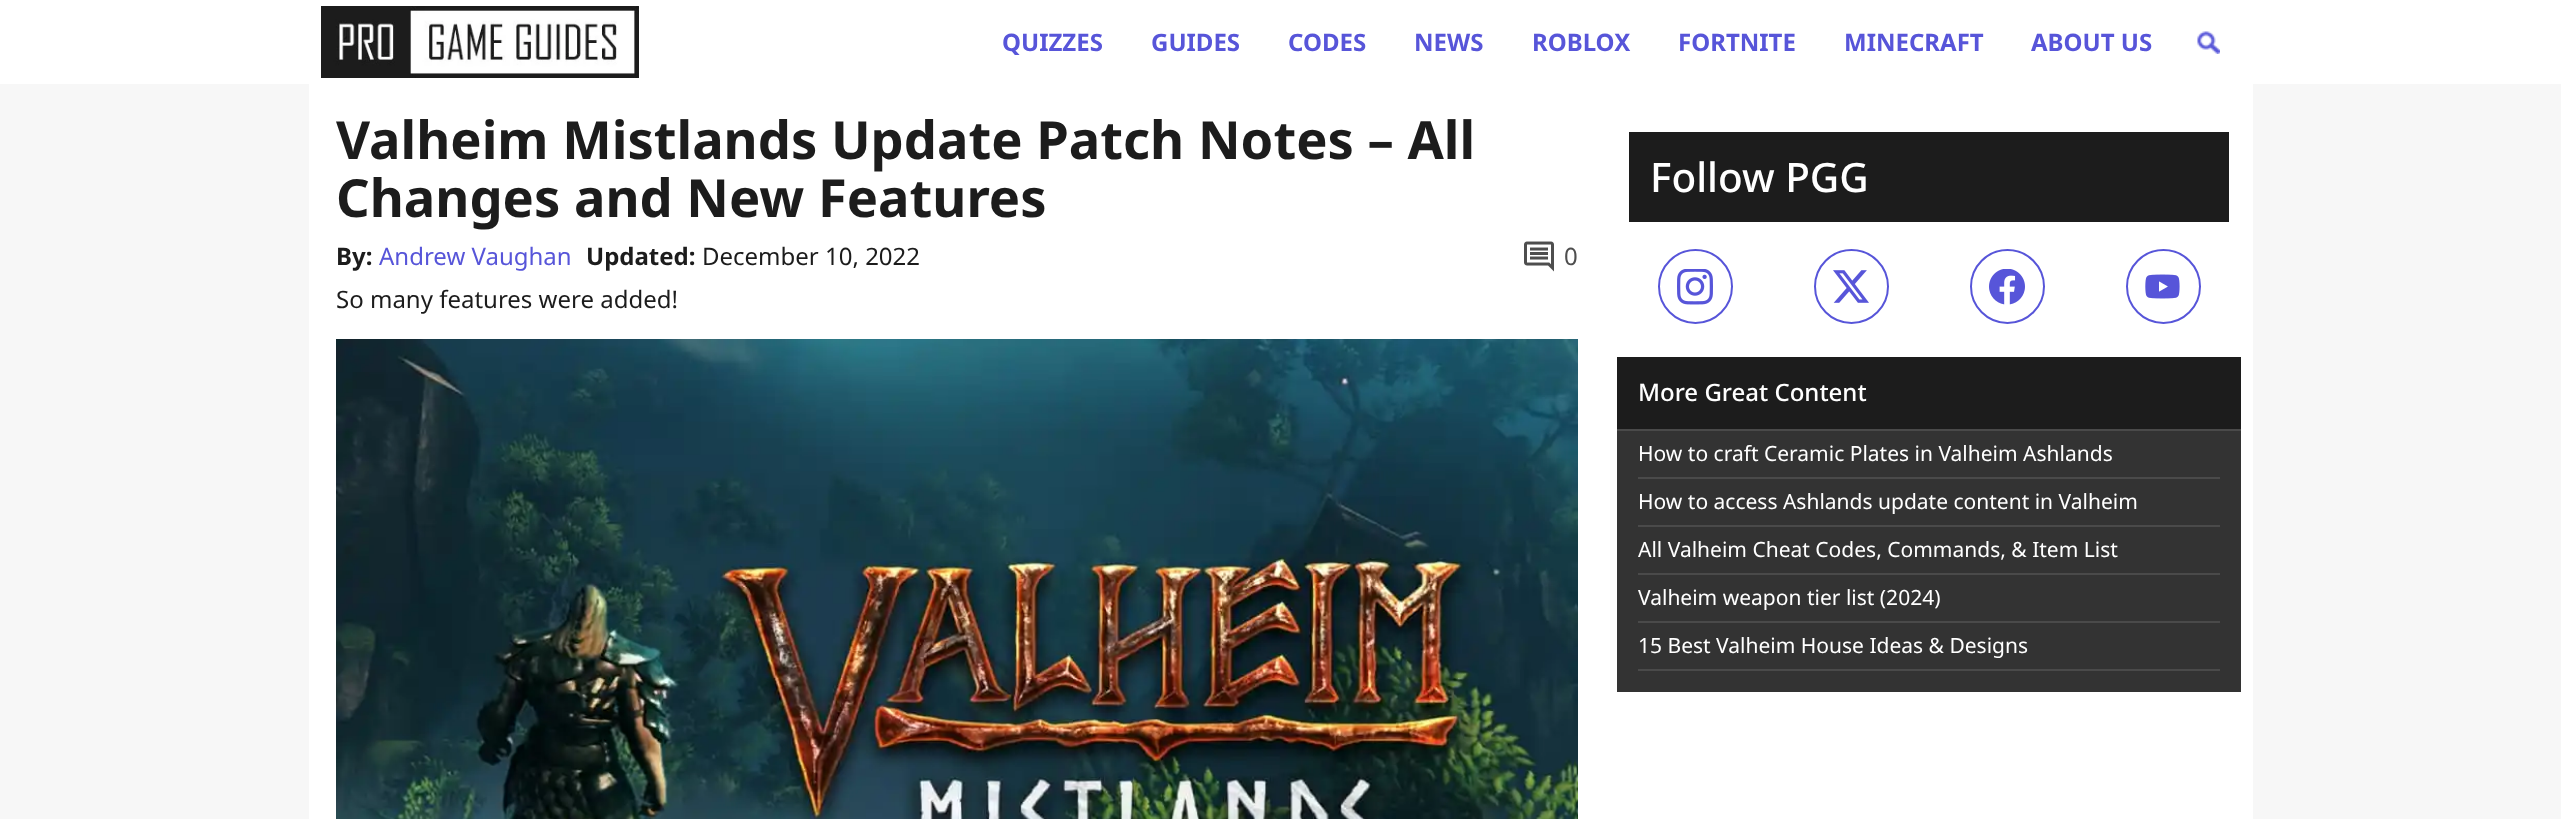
<svg xmlns="http://www.w3.org/2000/svg" width="2561" height="819">
	<rect width="100%" height="100%" fill="#F7F7F7" />
	<rect x="0" y="0" width="2561" height="84" fill="#FFFFFF" />
	<image x="321" y="6" width="318" height="72" href="assets/img1.png" />
	<g font-family="Noto Sans" font-size="24" font-weight="700" fill="#5755D9">
		<text x="1002" y="51">QUIZZES</text>
		<text x="1151" y="51">GUIDES</text>
		<text x="1288" y="51">CODES</text>
		<text x="1414" y="51">NEWS</text>
		<text x="1532" y="51">ROBLOX</text>
		<text x="1678" y="51">FORTNITE</text>
		<text x="1844" y="51">MINECRAFT</text>
		<text x="2031" y="51">ABOUT US</text>
	</g>
	<image x="2197" y="31" width="23" height="23" href="assets/img2.png" />
	<rect x="309" y="84" width="1944" height="735" fill="#FFFFFF" />
	<g font-family="Noto Sans" font-size="52.5" font-weight="700" fill="#1C1C1C">
		<text x="336" y="159">Valheim Mistlands Update Patch Notes – All</text>
		<text x="336" y="217">Changes and New Features</text>
	</g>
	<text x="336" y="265" font-family="Noto Sans" font-size="24" font-weight="700" fill="#1C1C1C">By:</text>
	<text x="379" y="265" font-family="Noto Sans" font-size="24" fill="#5755D9">Andrew Vaughan</text>
	<text x="586" y="265" font-family="Noto Sans" font-size="24" font-weight="700" fill="#1C1C1C">Updated:</text>
	<text x="702" y="265" font-family="Noto Sans" font-size="24" fill="#1C1C1C">December 10, 2022</text>
	<image x="1524" y="241" width="30" height="31" href="assets/img3.png" />
	<text x="1564" y="265" font-family="Noto Sans" font-size="24" fill="#4E4E4E">0</text>
	<text x="336" y="308" font-family="Noto Sans" font-size="24" fill="#1C1C1C">So many features were added!</text>
	<image x="336" y="339" width="1242" height="480" href="assets/img4.png" />
	<rect x="1629" y="132" width="600" height="90" fill="#1C1C1C" />
	<text x="1650" y="192" font-family="Noto Sans" font-size="40.5" font-weight="500" fill="#FFFFFF">Follow PGG</text>
	<circle cx="1695.5" cy="286.5" r="36.5" fill="none" stroke="#5755D9" stroke-width="2" />
	<image x="1677" y="269" width="36" height="36" href="assets/img5.png" />
	<circle cx="1851.5" cy="286.5" r="36.5" fill="none" stroke="#5755D9" stroke-width="2" />
	<image x="1833" y="270" width="36" height="33" href="assets/img6.png" />
	<circle cx="2007.5" cy="286.5" r="36.5" fill="none" stroke="#5755D9" stroke-width="2" />
	<image x="1989" y="269" width="36" height="36" href="assets/img7.png" />
	<circle cx="2163.5" cy="286.5" r="36.5" fill="none" stroke="#5755D9" stroke-width="2" />
	<image x="2145" y="274" width="35" height="25" href="assets/img8.png" />
	<rect x="1617" y="431" width="624" height="261" fill="#333333" />
	<rect x="1617" y="357" width="624" height="72" fill="#1C1C1C" />
	<text x="1638" y="401" font-family="Noto Sans" font-size="24" font-weight="500" fill="#FFFFFF">More Great Content</text>
	<rect x="1617" y="429" width="624" height="2" fill="#4A4A4A" />
	<rect x="1638" y="477" width="582" height="2" fill="#4A4A4A" />
	<text x="1638" y="461" font-family="Noto Sans" font-size="21" fill="#FFFFFF">How to craft Ceramic Plates in Valheim Ashlands</text>
	<rect x="1638" y="525" width="582" height="2" fill="#4A4A4A" />
	<text x="1638" y="509" font-family="Noto Sans" font-size="21" fill="#FFFFFF">How to access Ashlands update content in Valheim</text>
	<rect x="1638" y="573" width="582" height="2" fill="#4A4A4A" />
	<text x="1638" y="557" font-family="Noto Sans" font-size="21" fill="#FFFFFF">All Valheim Cheat Codes, Commands, &amp; Item List</text>
	<rect x="1638" y="621" width="582" height="2" fill="#4A4A4A" />
	<text x="1638" y="605" font-family="Noto Sans" font-size="21" fill="#FFFFFF">Valheim weapon tier list (2024)</text>
	<rect x="1638" y="669" width="582" height="2" fill="#4A4A4A" />
	<text x="1638" y="653" font-family="Noto Sans" font-size="21" fill="#FFFFFF">15 Best Valheim House Ideas &amp; Designs</text>
</svg>
